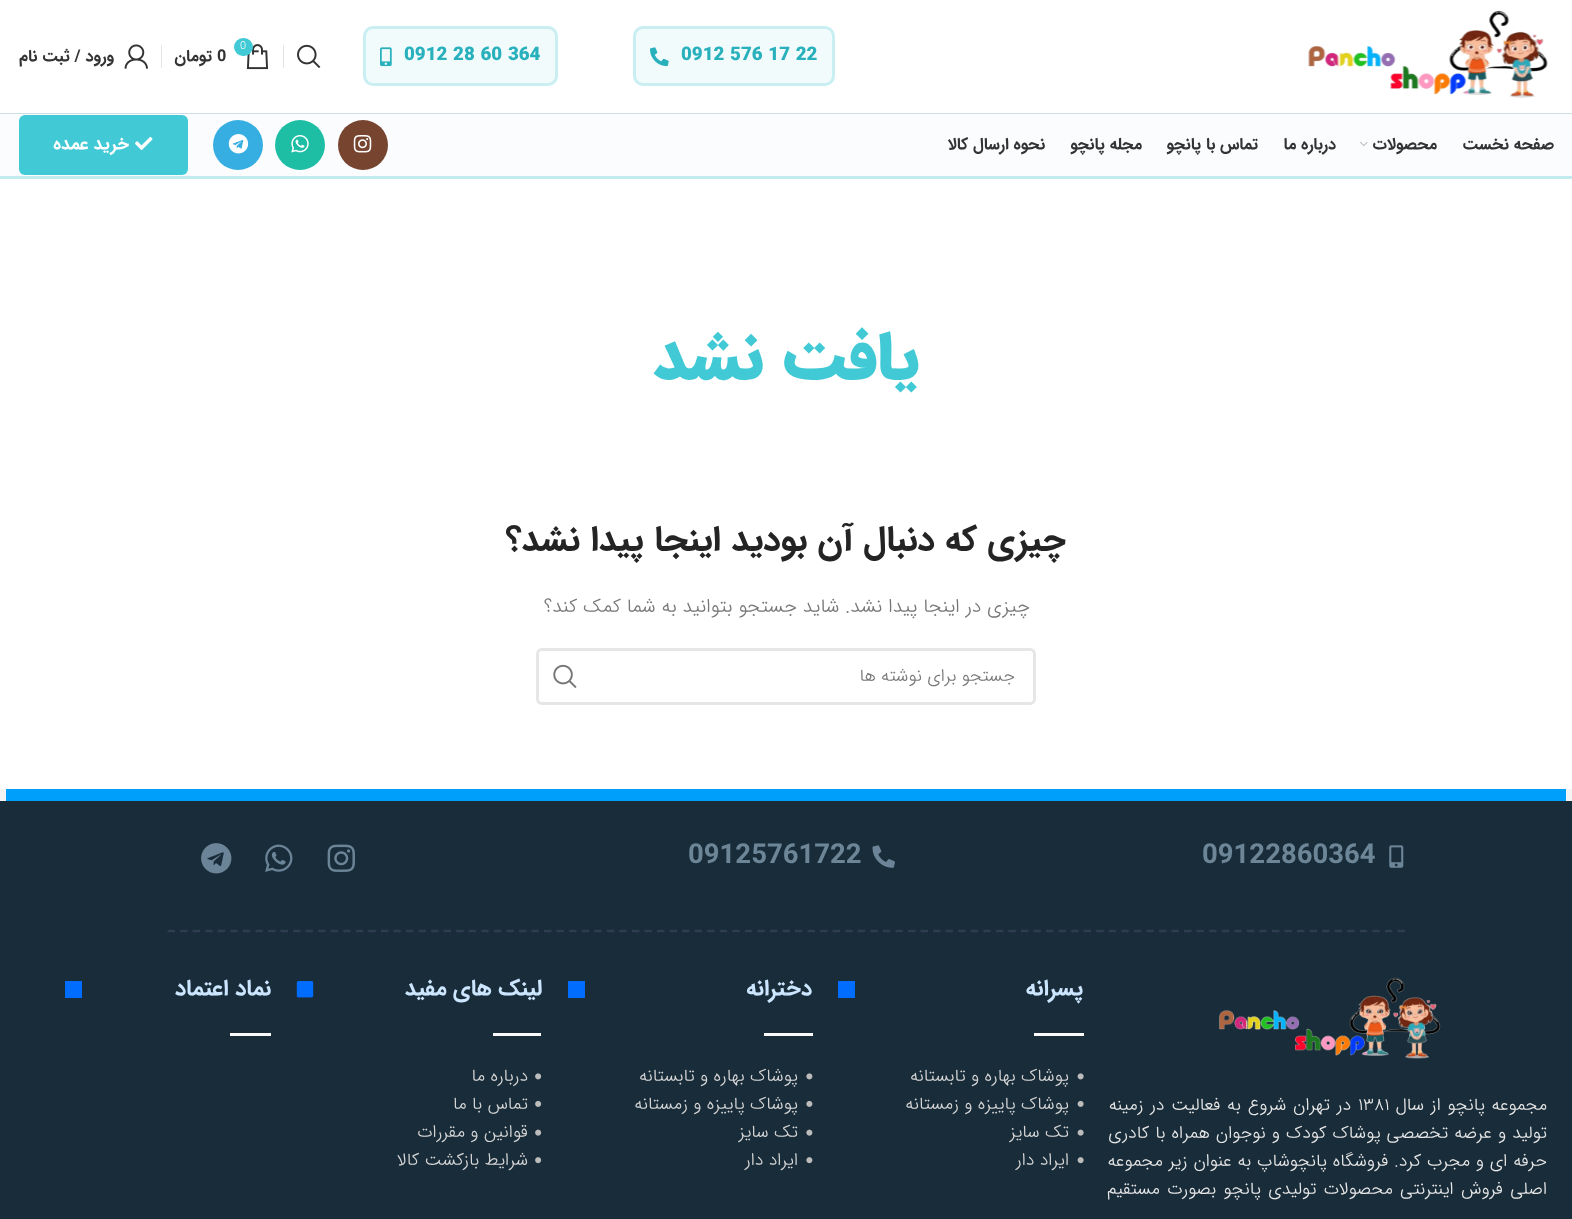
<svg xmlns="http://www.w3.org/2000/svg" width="1572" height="1219">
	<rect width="100%" height="100%" fill="#FFFFFF" />
	<rect x="0" y="113" width="1572" height="1" fill="#CCDEE6" />
	<image x="1308" y="10" width="240" height="88" href="assets/img1.png" />
	<rect x="633" y="26" width="202" height="60" rx="10" fill="#F2FBFC" />
	<rect x="634.5" y="27.5" width="199" height="57" rx="8.5" fill="none" stroke="#4FCDD7" stroke-opacity="0.25" stroke-width="3" />
	<text x="681" y="60" font-family="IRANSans" font-size="18.75" font-weight="900" fill="#28B1BC">0912 576 17 22</text>
	<image x="650" y="47" width="19" height="20" href="assets/img2.png" />
	<rect x="363" y="26" width="195" height="60" rx="10" fill="#F2FBFC" />
	<rect x="364.5" y="27.5" width="192" height="57" rx="8.5" fill="none" stroke="#4FCDD7" stroke-opacity="0.25" stroke-width="3" />
	<text x="404" y="60" font-family="IRANSans" font-size="18.75" font-weight="900" fill="#28B1BC">0912 28 60 364</text>
	<image x="380" y="47" width="12" height="20" href="assets/img3.png" />
	<image x="297" y="44" width="24" height="24" href="assets/img4.png" />
	<rect x="283" y="45" width="1" height="23" fill="#E4E4E4" />
	<image x="246" y="44" width="23" height="26" href="assets/img5.png" />
	<rect x="234" y="38" width="19" height="18" rx="9" fill="#41CAD5" />
	<text x="240" y="49" font-family="IRANSans" font-size="11" font-weight="300" fill="#FFFFFF">0</text>
	<text x="217" y="61" font-family="IRANSans" font-size="16.25" font-weight="700" fill="#333333">0</text>
	<text x="212" y="61" font-family="IRANSans" font-size="16.25" font-weight="700" direction="rtl" fill="#333333">تومان</text>
	<rect x="161" y="45" width="1" height="23" fill="#E4E4E4" />
	<image x="124" y="44" width="24" height="25" href="assets/img6.png" />
	<text x="114" y="61" font-family="IRANSans" font-size="16.25" font-weight="700" direction="rtl" fill="#333333">ورود / ثبت نام</text>
	<rect x="0" y="114" width="1572" height="62" fill="#FAFCFE" />
	<rect x="0" y="176" width="1572" height="3" fill="#C1EBEE" />
	<g font-family="IRANSans" font-size="16.25" font-weight="700" direction="rtl" fill="#333333">
		<text x="1554" y="149">صفحه نخست</text>
		<text x="1437" y="149">محصولات</text>
	</g>
	<image x="1360" y="142" width="8" height="4" href="assets/img7.png" />
	<g font-family="IRANSans" font-size="16.25" font-weight="700" direction="rtl" fill="#333333">
		<text x="1336" y="149">درباره ما</text>
		<text x="1258" y="149">تماس با پانچو</text>
		<text x="1142" y="149">مجله پانچو</text>
		<text x="1045" y="149">نحوه ارسال کالا</text>
	</g>
	<circle cx="363" cy="145" r="25" fill="#774430" />
	<image x="353" y="135" width="19" height="18" href="assets/img8.png" />
	<circle cx="300" cy="145" r="25" fill="#1EBEA5" />
	<image x="291" y="135" width="18" height="18" href="assets/img9.png" />
	<circle cx="238" cy="145" r="25" fill="#37AEE2" />
	<image x="228" y="134" width="21" height="20" href="assets/img10.png" />
	<rect x="19" y="115" width="169" height="60" rx="6" fill="#41CAD5" />
	<image x="135" y="136" width="18" height="14" href="assets/img11.png" />
	<text x="129" y="149" font-family="IRANSans" font-size="17.5" font-weight="700" direction="rtl" fill="#FFFFFF">خرید عمده</text>
	<text x="919" y="377" font-family="IRANSans" font-size="66" font-weight="900" direction="rtl" fill="#41CAD5">یافت نشد</text>
	<text x="1066" y="550" font-family="IRANSans" font-size="35" font-weight="700" direction="rtl" fill="#242424">چیزی که دنبال آن بودید اینجا پیدا نشد؟</text>
	<text x="1030" y="612" font-family="IRANSans" font-size="19.25" font-weight="300" direction="rtl" fill="#777777">چیزی در اینجا پیدا نشد. شاید جستجو بتوانید به شما کمک کند؟</text>
	<rect x="537.5" y="649.5" width="497" height="54" rx="4.5" fill="none" stroke="#E6E6E6" stroke-width="3" />
	<text x="1015" y="681" font-family="IRANSans" font-size="17.5" font-weight="300" direction="rtl" fill="#777777">جستجو برای نوشته ها</text>
	<image x="553" y="664" width="24" height="25" href="assets/img12.png" />
	<rect x="0" y="789" width="1572" height="12" fill="#F4F4F4" />
	<path d="M12 801H1572V914H0V801Z" fill="#192C39" />
	<rect x="6" y="789" width="1560" height="12" fill="#009FFB" />
	<image x="1389" y="845" width="15" height="23" href="assets/img13.png" />
	<text x="1202" y="863" font-family="IRANSans" font-size="27.5" font-weight="700" fill="#6C8597">09122860364</text>
	<image x="872" y="845" width="23" height="23" href="assets/img14.png" />
	<text x="688" y="863" font-family="IRANSans" font-size="27.5" font-weight="700" fill="#6C8597">09125761722</text>
	<image x="327" y="844" width="28" height="28" href="assets/img15.png" />
	<image x="265" y="844" width="28" height="28" href="assets/img16.png" />
	<image x="201" y="843" width="31" height="31" href="assets/img17.png" />
	<rect x="0" y="914" width="1572" height="305" fill="#192C39" />
	<path d="M167.5 931H1405" fill="none" stroke="#2F3C51" stroke-width="2.5" stroke-dasharray="7.5 5.05" />
	<image x="1219" y="977" width="222" height="82" href="assets/img18.png" />
	<text x="1547" y="1110" word-spacing="1.5" font-family="IRANSans" font-size="17.5" font-weight="300" direction="rtl" fill="#E9E9E9">مجموعه پانچو از سال</text>
	<text x="1358" y="1110" font-family="IRANSans" font-size="17.5" font-weight="300" fill="#E9E9E9">۱۳۸۱</text>
	<g font-family="IRANSans" font-size="17.5" font-weight="300" direction="rtl" fill="#E9E9E9">
		<text x="1351" y="1110" word-spacing="1.5">در تهران شروع به فعالیت در زمینه</text>
		<text x="1547" y="1138" word-spacing="0.75">تولید و عرضه تخصصی پوشاک کودک و نوجوان همراه با کادری</text>
		<text x="1547" y="1166" word-spacing="0.5">حرفه ای و مجرب کرد. فروشگاه پانچوشاپ به عنوان زیر مجموعه</text>
		<text x="1547" y="1194" word-spacing="2">اصلی فروش اینترنتی محصولات تولیدی پانچو بصورت مستقیم</text>
	</g>
	<text x="1083" y="995" font-family="IRANSans" font-size="22.5" font-weight="700" direction="rtl" fill="#CCE6FF">پسرانه</text>
	<rect x="838" y="981" width="17" height="17" fill="#006DFF" />
	<rect x="1034" y="1033" width="50" height="3" fill="#FBFBFB" />
	<image x="1077" y="1073" width="7" height="7" href="assets/img19.png" />
	<text x="1069" y="1081" font-family="IRANSans" font-size="17.5" font-weight="300" direction="rtl" fill="#D7D7D7">پوشاک بهاره و تابستانه</text>
	<image x="1077" y="1100" width="7" height="7" href="assets/img20.png" />
	<text x="1069" y="1109" font-family="IRANSans" font-size="17.5" font-weight="300" direction="rtl" fill="#D7D7D7">پوشاک پاییزه و زمستانه</text>
	<image x="1077" y="1129" width="7" height="7" href="assets/img21.png" />
	<text x="1069" y="1137" font-family="IRANSans" font-size="17.5" font-weight="300" direction="rtl" fill="#D7D7D7">تک سایز</text>
	<image x="1077" y="1157" width="7" height="7" href="assets/img22.png" />
	<text x="1069" y="1165" font-family="IRANSans" font-size="17.5" font-weight="300" direction="rtl" fill="#D7D7D7">ایراد دار</text>
	<text x="812" y="995" font-family="IRANSans" font-size="22.5" font-weight="700" direction="rtl" fill="#CCE6FF">دخترانه</text>
	<rect x="568" y="981" width="17" height="17" fill="#006DFF" />
	<rect x="764" y="1033" width="49" height="3" fill="#FBFBFB" />
	<image x="806" y="1073" width="7" height="7" href="assets/img23.png" />
	<text x="798" y="1081" font-family="IRANSans" font-size="17.5" font-weight="300" direction="rtl" fill="#D7D7D7">پوشاک بهاره و تابستانه</text>
	<image x="806" y="1100" width="7" height="7" href="assets/img24.png" />
	<text x="798" y="1109" font-family="IRANSans" font-size="17.5" font-weight="300" direction="rtl" fill="#D7D7D7">پوشاک پاییزه و زمستانه</text>
	<image x="806" y="1129" width="7" height="7" href="assets/img25.png" />
	<text x="798" y="1137" font-family="IRANSans" font-size="17.5" font-weight="300" direction="rtl" fill="#D7D7D7">تک سایز</text>
	<image x="806" y="1157" width="7" height="7" href="assets/img26.png" />
	<text x="798" y="1165" font-family="IRANSans" font-size="17.5" font-weight="300" direction="rtl" fill="#D7D7D7">ایراد دار</text>
	<text x="542" y="995" font-family="IRANSans" font-size="22.5" font-weight="700" direction="rtl" fill="#CCE6FF">لینک های مفید</text>
	<image x="296" y="981" width="18" height="17" href="assets/img27.png" />
	<rect x="493" y="1033" width="48" height="3" fill="#FBFBFB" />
	<image x="535" y="1073" width="7" height="7" href="assets/img28.png" />
	<text x="528" y="1081" font-family="IRANSans" font-size="17.5" font-weight="300" direction="rtl" fill="#D7D7D7">درباره ما</text>
	<image x="535" y="1100" width="7" height="7" href="assets/img29.png" />
	<text x="528" y="1109" font-family="IRANSans" font-size="17.5" font-weight="300" direction="rtl" fill="#D7D7D7">تماس با ما</text>
	<image x="535" y="1129" width="7" height="7" href="assets/img30.png" />
	<text x="528" y="1137" font-family="IRANSans" font-size="17.5" font-weight="300" direction="rtl" fill="#D7D7D7">قوانین و مقررات</text>
	<image x="535" y="1157" width="7" height="7" href="assets/img31.png" />
	<text x="528" y="1165" font-family="IRANSans" font-size="17.5" font-weight="300" direction="rtl" fill="#D7D7D7">شرایط بازکشت کالا</text>
	<text x="271" y="995" font-family="IRANSans" font-size="22.5" font-weight="700" direction="rtl" fill="#CCE6FF">نماد اعتماد</text>
	<rect x="65" y="981" width="17" height="17" fill="#006DFF" />
	<rect x="230" y="1033" width="41" height="3" fill="#FBFBFB" />
</svg>
